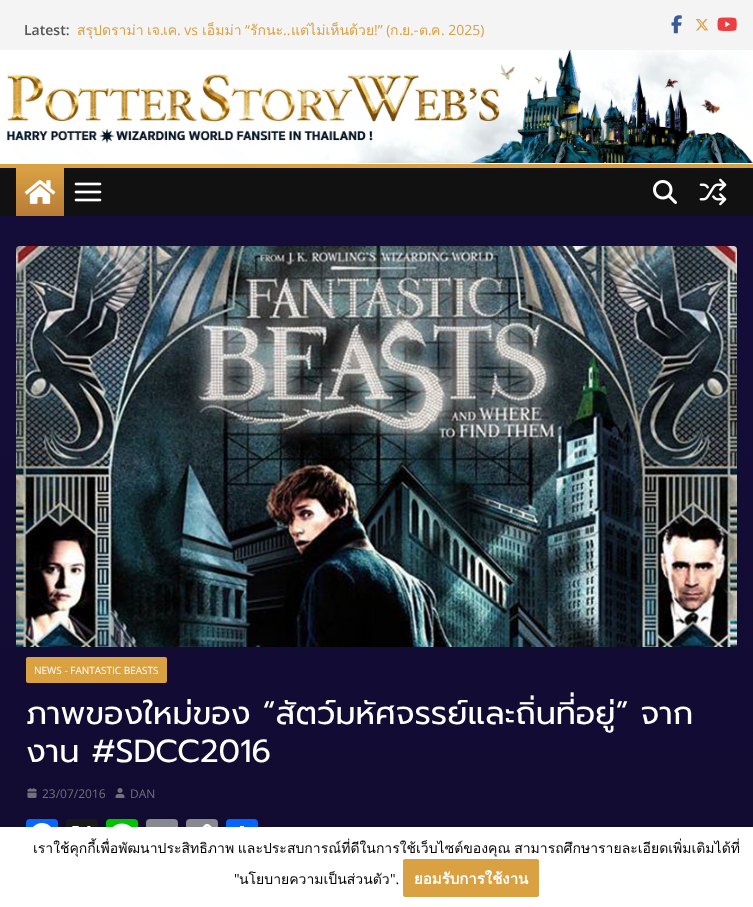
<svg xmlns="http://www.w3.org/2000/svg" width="753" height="907">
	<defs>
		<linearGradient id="g1" gradientUnits="userSpaceOnUse" x1="40" y1="216" x2="40" y2="168"><stop offset="0" stop-color="#B77B37" /><stop offset="1" stop-color="#DAA143" /></linearGradient>
		<linearGradient id="g2" gradientUnits="userSpaceOnUse" x1="376" y1="216" x2="377" y2="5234"><stop offset="0" stop-color="#140D39" /><stop offset="1" stop-color="#000000" /></linearGradient>
	</defs>
	<rect width="100%" height="100%" fill="#FFFFFF" />
	<rect x="0" y="0" width="753" height="50" fill="#F4F4F5" />
	<text x="24" y="35" font-family="Open Sans" font-size="14" font-weight="600" fill="#555555">Latest:</text>
	<g font-family="Loma" font-size="14" fill="#DAA143">
		<text x="77" y="35">สรุปดราม่า</text>
		<text x="202" y="35">เอ็มม่า</text>
	</g>
	<text x="245" y="35" font-family="Open Sans" font-size="14" fill="#DAA143">“</text>
	<g font-family="Loma" font-size="14" fill="#DAA143">
		<text x="250" y="35">รักนะ</text>
		<text x="291" y="35">แต่ไม่เห็นด้วย</text>
	</g>
	<text x="441" y="35" font-family="Open Sans" font-size="14" fill="#DAA143">. 2025)</text>
	<text x="147" y="35" font-family="Loma" font-size="14" fill="#DAA143">เจ</text>
	<text x="160" y="35" font-family="Open Sans" font-size="14" fill="#DAA143">.</text>
	<text x="163" y="35" font-family="Loma" font-size="14" fill="#DAA143">เค</text>
	<g font-family="Open Sans" font-size="14" fill="#DAA143">
		<text x="177" y="35">. vs</text>
		<text x="283" y="35">..</text>
		<text x="374" y="35">!” (</text>
	</g>
	<text x="390" y="35" font-family="Loma" font-size="14" fill="#DAA143">ก</text>
	<text x="399" y="35" font-family="Open Sans" font-size="14" fill="#DAA143">.</text>
	<text x="402" y="35" font-family="Loma" font-size="14" fill="#DAA143">ย</text>
	<text x="410" y="35" font-family="Open Sans" font-size="14" fill="#DAA143">.-</text>
	<text x="419" y="35" font-family="Loma" font-size="14" fill="#DAA143">ต</text>
	<text x="428" y="35" font-family="Open Sans" font-size="14" fill="#DAA143">.</text>
	<text x="431" y="35" font-family="Loma" font-size="14" fill="#DAA143">ค</text>
	<image x="671" y="15" width="11" height="19" href="assets/img1.png" />
	<image x="695" y="19" width="14" height="12" href="assets/img2.png" />
	<image x="717" y="17" width="20" height="14" href="assets/img3.png" />
	<image x="0" y="50" width="753" height="113" href="assets/img4.png" />
	<rect x="0" y="168" width="753" height="48" fill="#111111" />
	<rect x="0" y="164" width="753" height="4" fill="#DAA143" />
	<rect x="16" y="168" width="48" height="48" fill="url(#g1)" />
	<image x="24" y="180" width="32" height="24" href="assets/img5.png" />
	<image x="74" y="182" width="28" height="20" href="assets/img6.png" />
	<image x="653" y="180" width="24" height="24" href="assets/img7.png" />
	<image x="699" y="178" width="28" height="28" href="assets/img8.png" />
	<rect x="0" y="216" width="753" height="611" fill="url(#g2)" />
	<image x="16" y="246" width="721" height="401" href="assets/img9.png" />
	<rect x="26" y="657" width="141" height="26" rx="2" fill="#DAA143" />
	<text x="34" y="674" font-family="Open Sans" font-size="10" fill="#FFFFFF">NEWS - FANTASTIC BEASTS</text>
	<g font-family="Prompt" font-size="32" fill="#FFFFFF">
		<text x="26" y="724">ภาพของใหม่ของ “สัตว์มหัศจรรย์และถิ่นที่อยู่” จาก</text>
		<text x="26" y="762">งาน #SDCC2016</text>
	</g>
	<image x="27" y="788" width="10" height="10" href="assets/img10.png" />
	<text x="42" y="798" font-family="Open Sans" font-size="12" fill="#71717A">23/07/2016</text>
	<image x="115" y="788" width="10" height="10" href="assets/img11.png" />
	<text x="130" y="798" font-family="Open Sans" font-size="12" fill="#71717A">DAN</text>
	<rect x="26" y="819" width="32" height="32" rx="4" fill="#0866FF" />
	<image x="33" y="823" width="18" height="4" href="assets/img12.png" />
	<rect x="66" y="819" width="32" height="32" rx="4" fill="#1A1A1A" />
	<image x="72" y="826" width="19" height="1" href="assets/img13.png" />
	<rect x="106" y="819" width="32" height="32" rx="4" fill="#00C300" />
	<image x="113" y="823" width="18" height="4" href="assets/img14.png" />
	<rect x="146" y="819" width="32" height="32" rx="4" fill="#888990" />
	<rect x="186" y="819" width="32" height="32" rx="4" fill="#888990" />
	<image x="202" y="824" width="10" height="3" href="assets/img15.png" />
	<rect x="226" y="819" width="32" height="32" rx="4" fill="#0166FF" />
	<rect x="240" y="826" width="4" height="1" fill="#FFFFFF" />
	<rect x="26" y="827" width="232" height="24" fill="#FFFFFF" />
	<text x="33" y="853" word-spacing="-1" font-family="Loma" font-size="14" fill="#000000">เราใช้คุกกี้เพื่อพัฒนาประสิทธิภาพ และประสบการณ์ที่ดีในการใช้เว็บไซต์ของคุณ สามารถศึกษารายละเอียดเพิ่มเติมได้ที่</text>
	<text x="234" y="884" font-family="Open Sans" font-size="14" fill="#000000">"</text>
	<text x="239" y="884" font-family="Loma" font-size="14" fill="#000000">นโยบายความเป็นส่วนตัว</text>
	<text x="390" y="884" font-family="Open Sans" font-size="14" fill="#000000">".</text>
	<rect x="403.5" y="859.5" width="135" height="37" rx="1.5" fill="#DAA143" stroke="#DAA143" />
	<text x="414" y="884" font-family="Loma" font-size="15" font-weight="700" fill="#FFFFFF">ยอมรับการใช้งาน</text>
</svg>
